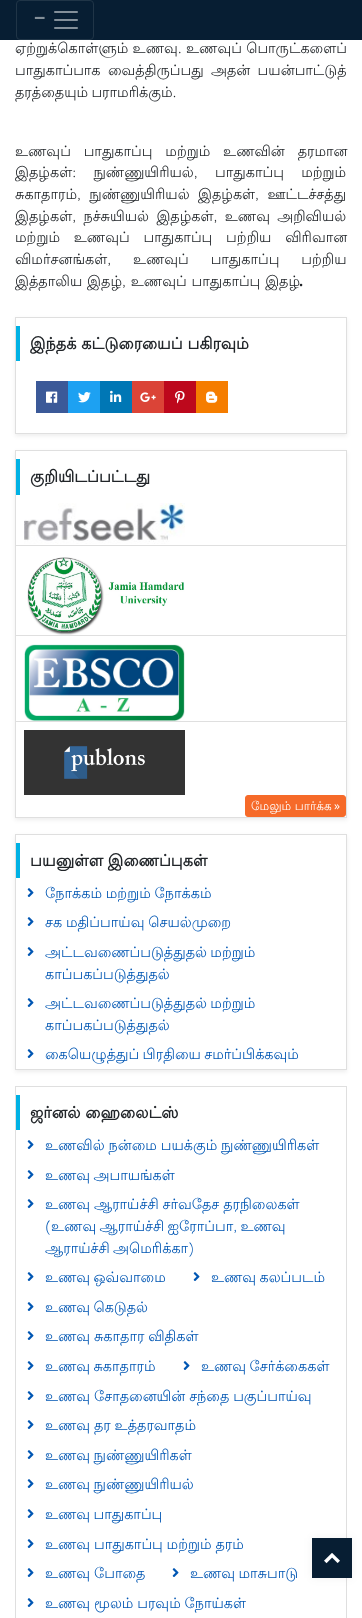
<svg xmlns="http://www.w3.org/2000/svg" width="362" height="1618">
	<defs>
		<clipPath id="clip1"><path d="M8 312H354V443H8ZM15 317H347V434H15Z" clip-rule="evenodd" /></clipPath>
		<clipPath id="clip2"><path d="M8 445H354V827H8ZM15 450H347V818H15Z" clip-rule="evenodd" /></clipPath>
		<clipPath id="clip3"><path d="M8 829H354V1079H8ZM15 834H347V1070H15Z" clip-rule="evenodd" /></clipPath>
	</defs>
	<rect width="100%" height="100%" fill="#FFFFFF" />
	<rect x="0" y="0" width="362" height="40" fill="#071E33" />
	<rect x="16.5" y="0.5" width="77" height="39" rx="3.5" fill="none" stroke="#203547" />
	<text x="34" y="25" font-family="Open Sans" font-size="20" font-weight="700" fill="#838F99">−</text>
	<image x="54" y="11" width="24" height="18" href="assets/img1.png" />
	<g font-family="Lohit Tamil" font-size="14.4" fill="#212529">
		<text x="15" y="53">ஏற்றுக்கொள்ளும் உணவு. உணவுப் பொருட்களைப்</text>
		<text x="15" y="75" word-spacing="3">பாதுகாப்பாக வைத்திருப்பது அதன் பயன்பாட்டுத்</text>
		<text x="15" y="97" word-spacing="-1">தரத்தையும் பராமரிக்கும்.</text>
		<text x="15" y="156" word-spacing="8.5">உணவுப் பாதுகாப்பு மற்றும் உணவின் தரமான</text>
		<text x="15" y="177" word-spacing="13">இதழ்கள்: நுண்ணுயிரியல், பாதுகாப்பு மற்றும்</text>
		<text x="15" y="199" word-spacing="4">சுகாதாரம், நுண்ணுயிரியல் இதழ்கள், ஊட்டச்சத்து</text>
		<text x="15" y="221" word-spacing="3">இதழ்கள், நச்சுயியல் இதழ்கள், உணவு அறிவியல்</text>
		<text x="15" y="242" word-spacing="9.5">மற்றும் உணவுப் பாதுகாப்பு பற்றிய விரிவான</text>
		<text x="15" y="264" word-spacing="17.5">விமர்சனங்கள், உணவுப் பாதுகாப்பு பற்றிய</text>
		<text x="15" y="286" word-spacing="0.5">இத்தாலிய இதழ், உணவுப் பாதுகாப்பு இதழ்</text>
	</g>
	<text x="299" y="286" font-family="Open Sans" font-size="14.4" font-weight="700" fill="#212529">.</text>
	<g clip-path="url(#clip1)">
		<rect x="15" y="319" width="332" height="117" fill="#000000" fill-opacity="0.07" filter="blur(2px)" />
	</g>
	<rect x="15.5" y="317.5" width="331" height="116" fill="none" stroke="#DFDFDF" />
	<rect x="16" y="326" width="4" height="35" fill="#00B1E4" />
	<text x="30" y="349" font-family="Lohit Tamil" font-size="16" font-weight="700" fill="#212529">இந்தக் கட்டுரையைப் பகிரவும்</text>
	<rect x="36" y="381" width="32" height="32" fill="#3B5998" />
	<image x="46" y="391" width="12" height="12" href="assets/img2.png" />
	<rect x="68" y="381" width="32" height="32" fill="#1DA1F2" />
	<image x="78" y="392" width="13" height="11" href="assets/img3.png" />
	<rect x="100" y="381" width="32" height="32" fill="#0077B5" />
	<image x="110" y="390" width="12" height="12" href="assets/img4.png" />
	<rect x="132" y="381" width="32" height="32" fill="#DB4437" />
	<image x="140" y="392" width="16" height="10" href="assets/img5.png" />
	<rect x="164" y="381" width="32" height="32" fill="#BD081C" />
	<image x="175" y="391" width="10" height="13" href="assets/img6.png" />
	<rect x="196" y="381" width="32" height="32" fill="#F57D00" />
	<image x="206" y="391" width="12" height="12" href="assets/img7.png" />
	<g clip-path="url(#clip2)">
		<rect x="15" y="452" width="332" height="368" fill="#000000" fill-opacity="0.07" filter="blur(2px)" />
	</g>
	<rect x="15.5" y="450.5" width="331" height="367" fill="none" stroke="#DFDFDF" />
	<rect x="16" y="459" width="4" height="36" fill="#00B1E4" />
	<text x="30" y="482" font-family="Lohit Tamil" font-size="16" font-weight="700" fill="#212529">குறியிடப்பட்டது</text>
	<image x="24" y="503" width="161" height="41" href="assets/img8.png" />
	<rect x="16" y="545" width="330" height="1" fill="#DFDFDF" />
	<image x="27" y="557" width="158" height="78" href="assets/img9.png" />
	<rect x="16" y="635" width="330" height="1" fill="#DFDFDF" />
	<image x="24" y="644" width="161" height="77" href="assets/img10.png" />
	<rect x="16" y="721" width="330" height="1" fill="#DFDFDF" />
	<image x="24" y="730" width="161" height="65" href="assets/img11.png" />
	<rect x="245.5" y="795.5" width="100" height="21" rx="2.5" fill="#F66A29" stroke="#F66A29" />
	<text x="251" y="810" font-family="Lohit Tamil" font-size="12" fill="#FFFFFF">மேலும் பார்க்க</text>
	<text x="334" y="810" font-family="Open Sans" font-size="12" fill="#FFFFFF">»</text>
	<g clip-path="url(#clip3)">
		<rect x="15" y="836" width="332" height="236" fill="#000000" fill-opacity="0.07" filter="blur(2px)" />
	</g>
	<rect x="15.5" y="834.5" width="331" height="235" fill="none" stroke="#DFDFDF" />
	<rect x="16" y="843" width="4" height="35" fill="#00B1E4" />
	<text x="30" y="866" font-family="Lohit Tamil" font-size="16" font-weight="700" fill="#212529">பயனுள்ள இணைப்புகள்</text>
	<image x="27" y="888" width="7" height="9" href="assets/img12.png" />
	<text x="45" y="898" word-spacing="-0.5" font-family="Lohit Tamil" font-size="14.4" fill="#0056B3">நோக்கம் மற்றும் நோக்கம்</text>
	<image x="27" y="917" width="7" height="9" href="assets/img12.png" />
	<text x="45" y="927" word-spacing="-0.5" font-family="Lohit Tamil" font-size="14.4" fill="#0056B3">சக மதிப்பாய்வு செயல்முறை</text>
	<image x="27" y="947" width="7" height="9" href="assets/img12.png" />
	<g font-family="Lohit Tamil" font-size="14.4" fill="#0056B3">
		<text x="45" y="957" word-spacing="-1">அட்டவணைப்படுத்துதல் மற்றும்</text>
		<text x="45" y="979">காப்பகப்படுத்துதல்</text>
	</g>
	<image x="27" y="998" width="7" height="9" href="assets/img12.png" />
	<g font-family="Lohit Tamil" font-size="14.4" fill="#0056B3">
		<text x="45" y="1008" word-spacing="-1">அட்டவணைப்படுத்துதல் மற்றும்</text>
		<text x="45" y="1030">காப்பகப்படுத்துதல்</text>
	</g>
	<image x="27" y="1049" width="7" height="9" href="assets/img12.png" />
	<text x="45" y="1059" word-spacing="-1" font-family="Lohit Tamil" font-size="14.4" fill="#0056B3">கையெழுத்துப் பிரதியை சமர்ப்பிக்கவும்</text>
	<rect x="15.5" y="1086.5" width="331" height="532" fill="none" stroke="#DFDFDF" />
	<rect x="16" y="1095" width="4" height="35" fill="#00B1E4" />
	<text x="30" y="1118" font-family="Lohit Tamil" font-size="16" font-weight="700" fill="#212529">ஜர்னல் ஹைலைட்ஸ்</text>
	<image x="27" y="1140" width="7" height="9" href="assets/img12.png" />
	<text x="45" y="1150" word-spacing="-0.5" font-family="Lohit Tamil" font-size="14.4" fill="#0056B3">உணவில் நன்மை பயக்கும் நுண்ணுயிரிகள்</text>
	<image x="27" y="1170" width="7" height="9" href="assets/img12.png" />
	<text x="45" y="1180" word-spacing="-1" font-family="Lohit Tamil" font-size="14.4" fill="#0056B3">உணவு அபாயங்கள்</text>
	<image x="27" y="1199" width="7" height="9" href="assets/img12.png" />
	<g font-family="Lohit Tamil" font-size="14.4" fill="#0056B3">
		<text x="45" y="1209" word-spacing="-0.5">உணவு ஆராய்ச்சி சர்வதேச தரநிலைகள்</text>
		<text x="45" y="1231" word-spacing="-1">(உணவு ஆராய்ச்சி ஐரோப்பா, உணவு</text>
		<text x="45" y="1253" word-spacing="-1">ஆராய்ச்சி அமெரிக்கா)</text>
	</g>
	<image x="27" y="1272" width="7" height="9" href="assets/img12.png" />
	<text x="45" y="1282" word-spacing="-1" font-family="Lohit Tamil" font-size="14.4" fill="#0056B3">உணவு ஒவ்வாமை</text>
	<image x="193" y="1272" width="7" height="9" href="assets/img12.png" />
	<text x="211" y="1282" word-spacing="-1" font-family="Lohit Tamil" font-size="14.4" fill="#0056B3">உணவு கலப்படம்</text>
	<image x="27" y="1302" width="7" height="9" href="assets/img12.png" />
	<text x="45" y="1312" word-spacing="-1" font-family="Lohit Tamil" font-size="14.4" fill="#0056B3">உணவு கெடுதல்</text>
	<image x="27" y="1331" width="7" height="9" href="assets/img12.png" />
	<text x="45" y="1341" word-spacing="-0.5" font-family="Lohit Tamil" font-size="14.4" fill="#0056B3">உணவு சுகாதார விதிகள்</text>
	<image x="27" y="1361" width="7" height="9" href="assets/img12.png" />
	<text x="45" y="1371" word-spacing="-1" font-family="Lohit Tamil" font-size="14.4" fill="#0056B3">உணவு சுகாதாரம்</text>
	<image x="183" y="1361" width="7" height="9" href="assets/img12.png" />
	<text x="201" y="1371" word-spacing="-1" font-family="Lohit Tamil" font-size="14.4" fill="#0056B3">உணவு சேர்க்கைகள்</text>
	<image x="27" y="1391" width="7" height="9" href="assets/img12.png" />
	<text x="45" y="1401" word-spacing="-0.5" font-family="Lohit Tamil" font-size="14.4" fill="#0056B3">உணவு சோதனையின் சந்தை பகுப்பாய்வு</text>
	<image x="27" y="1420" width="7" height="9" href="assets/img12.png" />
	<text x="45" y="1430" word-spacing="-0.5" font-family="Lohit Tamil" font-size="14.4" fill="#0056B3">உணவு தர உத்தரவாதம்</text>
	<image x="27" y="1450" width="7" height="9" href="assets/img12.png" />
	<text x="45" y="1460" word-spacing="-1" font-family="Lohit Tamil" font-size="14.4" fill="#0056B3">உணவு நுண்ணுயிரிகள்</text>
	<image x="27" y="1479" width="7" height="9" href="assets/img12.png" />
	<text x="45" y="1489" word-spacing="-1" font-family="Lohit Tamil" font-size="14.4" fill="#0056B3">உணவு நுண்ணுயிரியல்</text>
	<image x="27" y="1509" width="7" height="9" href="assets/img12.png" />
	<text x="45" y="1519" word-spacing="-1" font-family="Lohit Tamil" font-size="14.4" fill="#0056B3">உணவு பாதுகாப்பு</text>
	<image x="27" y="1539" width="7" height="9" href="assets/img12.png" />
	<text x="45" y="1549" word-spacing="-0.5" font-family="Lohit Tamil" font-size="14.4" fill="#0056B3">உணவு பாதுகாப்பு மற்றும் தரம்</text>
	<image x="27" y="1568" width="7" height="9" href="assets/img12.png" />
	<text x="45" y="1578" word-spacing="-0.5" font-family="Lohit Tamil" font-size="14.4" fill="#0056B3">உணவு போதை</text>
	<image x="172" y="1568" width="7" height="9" href="assets/img12.png" />
	<text x="190" y="1578" word-spacing="-1" font-family="Lohit Tamil" font-size="14.4" fill="#0056B3">உணவு மாசுபாடு</text>
	<image x="27" y="1598" width="7" height="9" href="assets/img12.png" />
	<text x="45" y="1608" word-spacing="-0.5" font-family="Lohit Tamil" font-size="14.4" fill="#0056B3">உணவு மூலம் பரவும் நோய்கள்</text>
	<rect x="312" y="1538" width="40" height="40" fill="#000000" fill-opacity="0.05" filter="blur(5px)" />
	<rect x="312" y="1538" width="40" height="40" fill="#071E33" />
	<image x="324" y="1553" width="16" height="11" href="assets/img13.png" />
</svg>
